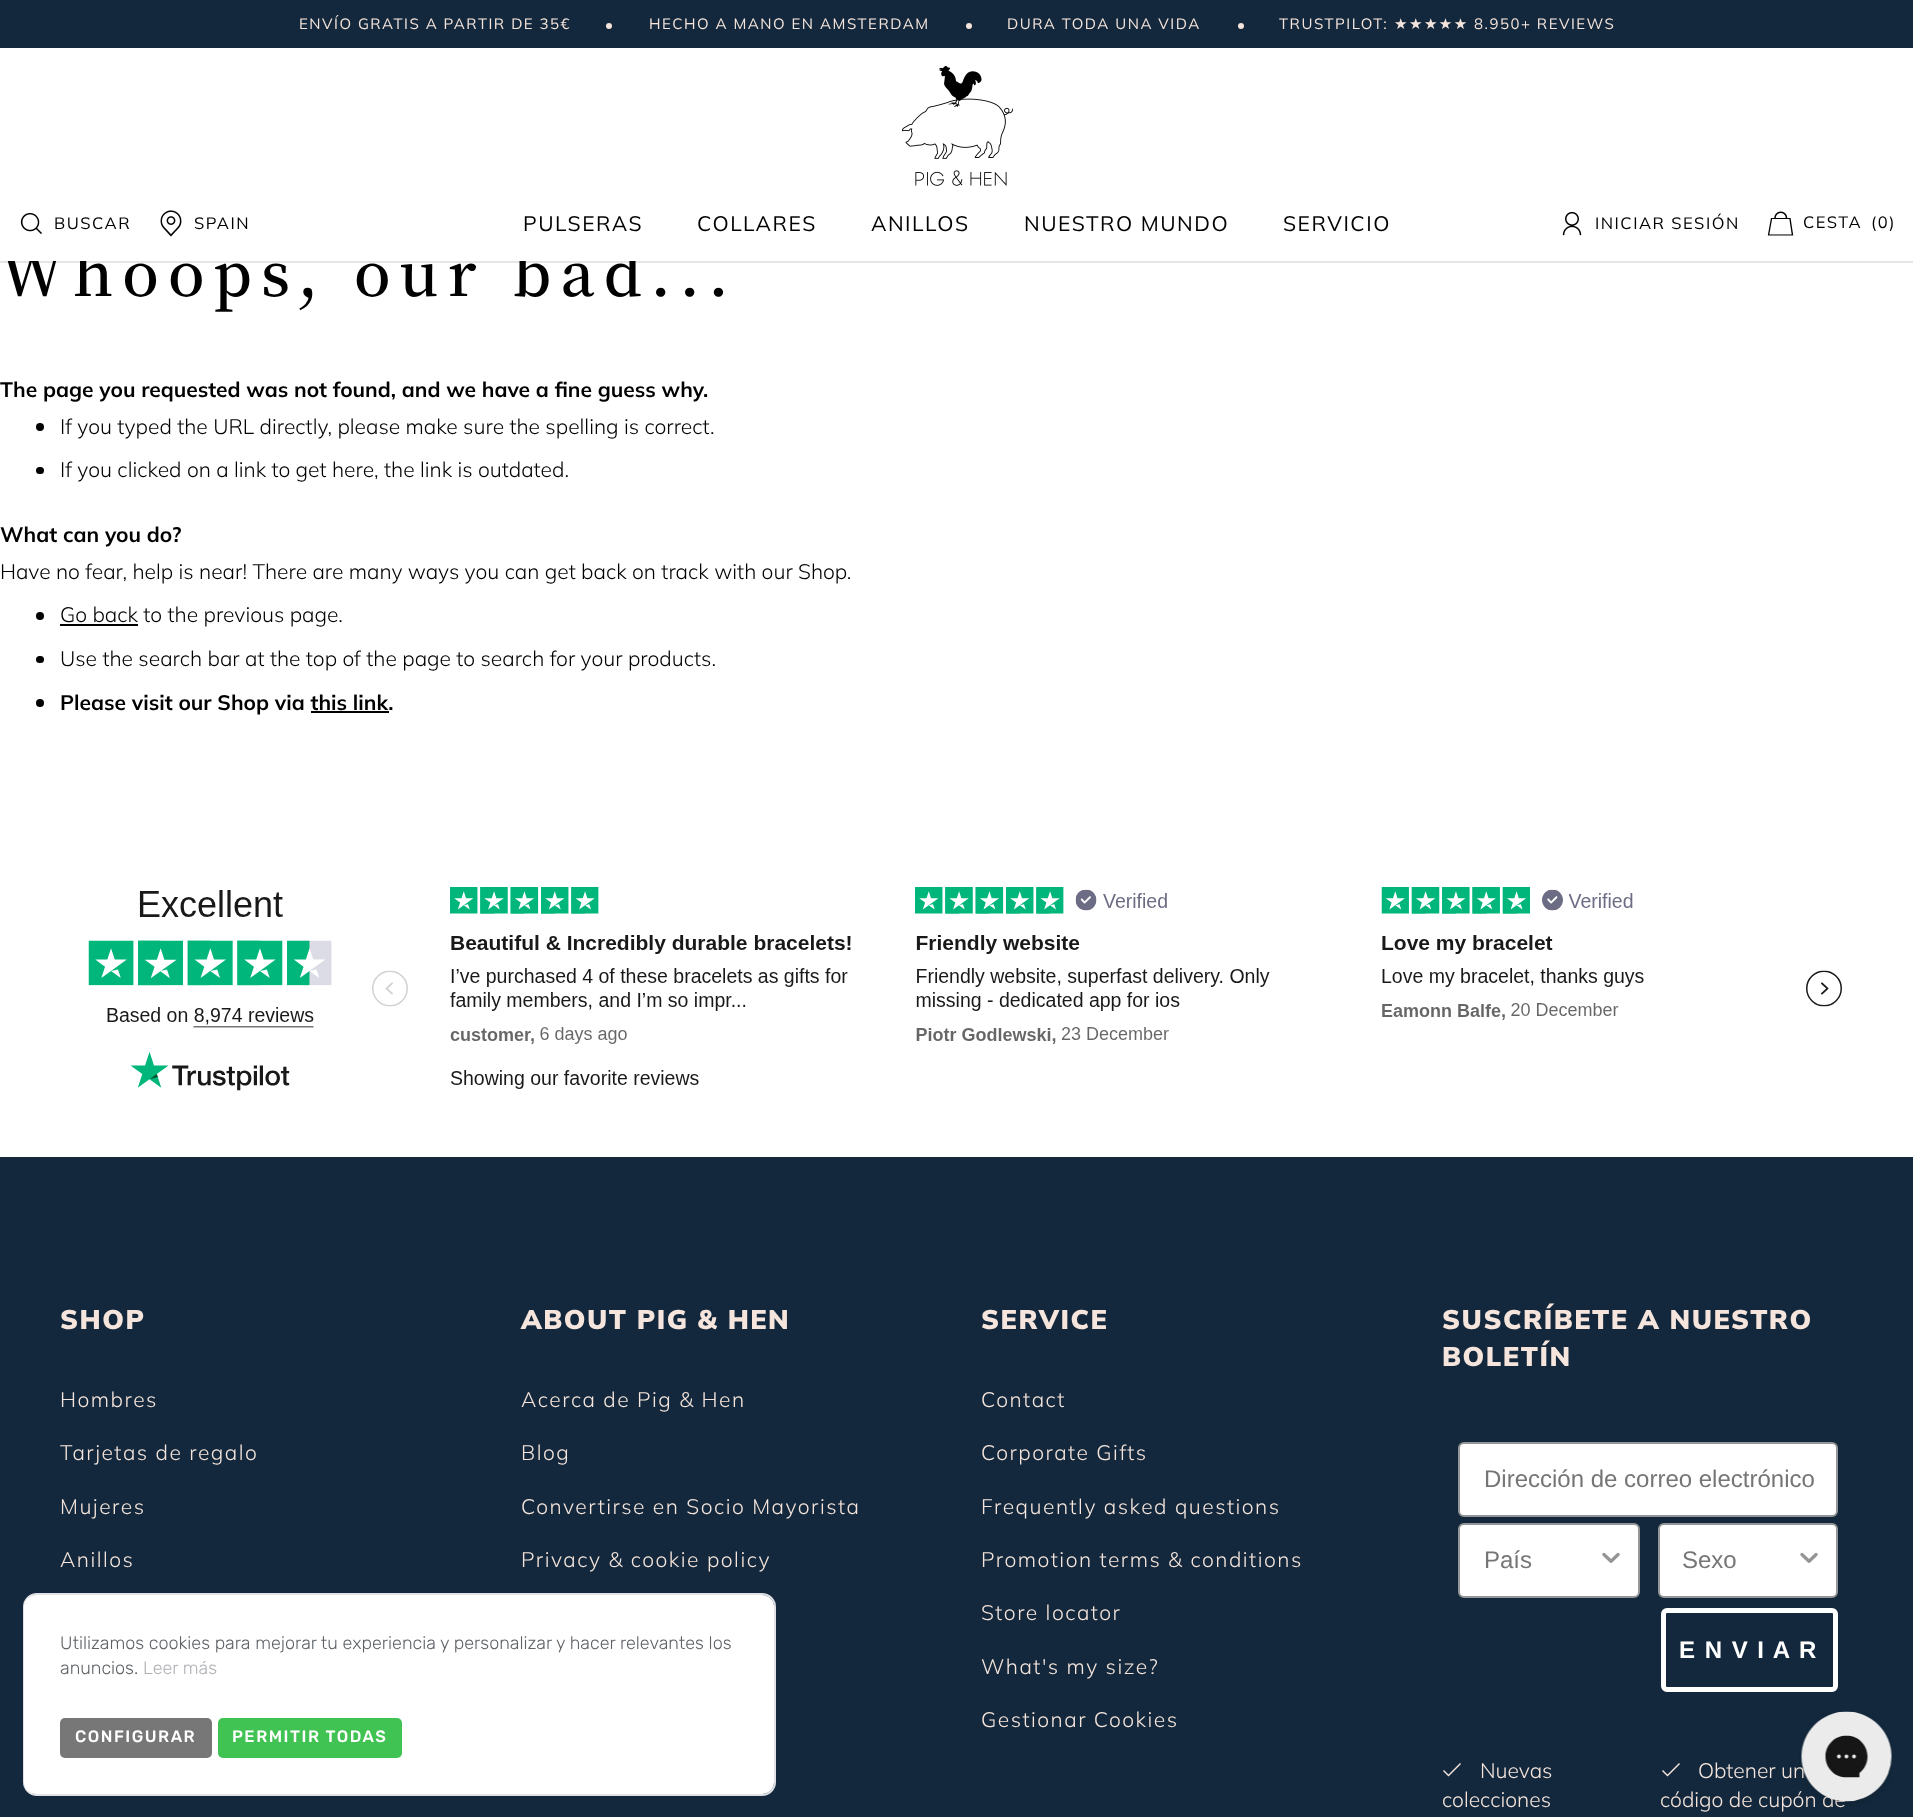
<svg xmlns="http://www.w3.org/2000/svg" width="1913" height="1817">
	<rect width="100%" height="100%" fill="#FFFFFF" />
	<text x="0" y="296" word-spacing="3" font-family="Noto Serif JP" font-size="60" font-weight="600" letter-spacing="9" fill="#000000">Whoops, our bad...</text>
	<rect x="0" y="247" width="636" height="14" fill="#FFFFFF" />
	<rect x="0" y="0" width="1913" height="48" fill="#13283C" />
	<text x="299" y="29" font-family="'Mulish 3'" font-size="15" font-weight="200" letter-spacing="1.5" fill="#F5E5DC">ENVÍO GRATIS A PARTIR DE 35€</text>
	<circle cx="609" cy="26" r="3" fill="#F5E5DC" />
	<text x="649" y="29" font-family="'Mulish 3'" font-size="15" font-weight="200" letter-spacing="1.5" fill="#F5E5DC">HECHO A MANO EN AMSTERDAM</text>
	<circle cx="969" cy="26" r="3" fill="#F5E5DC" />
	<text x="1007" y="29" font-family="'Mulish 3'" font-size="15" font-weight="200" letter-spacing="1.5" fill="#F5E5DC">DURA TODA UNA VIDA</text>
	<circle cx="1241" cy="26" r="3" fill="#F5E5DC" />
	<text x="1279" y="29" font-family="'Mulish 3'" font-size="15" font-weight="200" letter-spacing="1.5" fill="#F5E5DC">TRUSTPILOT:</text>
	<text x="1394" y="29" font-family="DejaVu Sans" font-size="15" letter-spacing="1.5" fill="#F5E5DC">★★★★★</text>
	<text x="1474" y="29" font-family="'Mulish 3'" font-size="15" font-weight="200" letter-spacing="1.5" fill="#F5E5DC">8.950+ REVIEWS</text>
	<image x="902" y="66" width="111" height="120" href="assets/img1.png" />
	<image x="20" y="213" width="22" height="21" href="assets/img2.png" />
	<text x="54" y="229" font-family="'Mulish 3'" font-size="16.5" font-weight="200" letter-spacing="1.5" fill="#000000">BUSCAR</text>
	<image x="160" y="210" width="22" height="27" href="assets/img3.png" />
	<text x="194" y="229" font-family="'Mulish 3'" font-size="16.5" font-weight="200" letter-spacing="1.5" fill="#000000">SPAIN</text>
	<g font-family="'Mulish 3'" font-size="21" font-weight="200" letter-spacing="1.5" fill="#000000">
		<text x="523" y="231">PULSERAS</text>
		<text x="697" y="231">COLLARES</text>
		<text x="871" y="231">ANILLOS</text>
		<text x="1024" y="231">NUESTRO MUNDO</text>
		<text x="1283" y="231">SERVICIO</text>
	</g>
	<image x="1562" y="211" width="20" height="25" href="assets/img4.png" />
	<text x="1595" y="229" font-family="'Mulish 3'" font-size="16.5" font-weight="200" letter-spacing="1.5" fill="#000000">INICIAR SESIÓN</text>
	<image x="1767" y="211" width="27" height="25" href="assets/img5.png" />
	<g font-family="'Mulish 3'" font-size="16.5" font-weight="200" letter-spacing="1.5" fill="#000000">
		<text x="1803" y="228">CESTA</text>
		<text x="1871" y="228">(0)</text>
	</g>
	<rect x="0" y="261" width="1913" height="2" fill="#000000" fill-opacity="0.1" />
	<text x="0" y="397" font-family="Mulish" font-size="21" font-weight="700" fill="#000000">The page you requested was not found, and we have a fine guess why.</text>
	<circle cx="40" cy="427" r="4" fill="#000000" />
	<text x="60" y="434" font-family="Mulish" font-size="21" font-weight="200" fill="#000000">If you typed the URL directly, please make sure the spelling is correct.</text>
	<rect x="36" y="467" width="8" height="7" rx="3.5" fill="#000000" />
	<text x="60" y="477" font-family="Mulish" font-size="21" font-weight="200" fill="#000000">If you clicked on a link to get here, the link is outdated.</text>
	<text x="0" y="542" font-family="Mulish" font-size="21" font-weight="700" fill="#000000">What can you do?</text>
	<text x="0" y="579" font-family="Mulish" font-size="21" font-weight="200" fill="#000000">Have no fear, help is near! There are many ways you can get back on track with our Shop.</text>
	<circle cx="40" cy="616" r="4" fill="#000000" />
	<rect x="60" y="624" width="78" height="2" fill="#000000" />
	<text x="60" y="622" font-family="Mulish" font-size="21" font-weight="200" fill="#000000">Go back to the previous page.</text>
	<rect x="36" y="656" width="8" height="7" rx="3.5" fill="#000000" />
	<text x="60" y="666" font-family="Mulish" font-size="21" font-weight="200" fill="#000000">Use the search bar at the top of the page to search for your products.</text>
	<circle cx="40" cy="703" r="4" fill="#000000" />
	<text x="60" y="710" font-family="Mulish" font-size="21" font-weight="700" fill="#000000">Please visit our Shop via this link.</text>
	<rect x="311" y="711" width="78" height="2" fill="#000000" />
	<image x="88" y="887" width="1754" height="204" href="assets/img6.png" />
	<rect x="0" y="1157" width="1913" height="660" fill="#13283C" />
	<text x="60" y="1329" font-family="'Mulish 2'" font-size="27" font-weight="200" letter-spacing="1.5" fill="#F5E5DC">SHOP</text>
	<g font-family="Mulish" font-size="21" font-weight="200" letter-spacing="1.5" fill="#F5E5DC">
		<text x="60" y="1407">Hombres</text>
		<text x="60" y="1460">Tarjetas de regalo</text>
		<text x="60" y="1514">Mujeres</text>
		<text x="60" y="1567">Anillos</text>
	</g>
	<text x="521" y="1329" font-family="'Mulish 2'" font-size="27" font-weight="200" letter-spacing="1.5" fill="#F5E5DC">ABOUT PIG &amp; HEN</text>
	<g font-family="Mulish" font-size="21" font-weight="200" letter-spacing="1.5" fill="#F5E5DC">
		<text x="521" y="1407">Acerca de Pig &amp; Hen</text>
		<text x="521" y="1460">Blog</text>
		<text x="521" y="1514">Convertirse en Socio Mayorista</text>
		<text x="521" y="1567">Privacy &amp; cookie policy</text>
	</g>
	<text x="981" y="1329" font-family="'Mulish 2'" font-size="27" font-weight="200" letter-spacing="1.5" fill="#F5E5DC">SERVICE</text>
	<g font-family="Mulish" font-size="21" font-weight="200" letter-spacing="1.5" fill="#F5E5DC">
		<text x="981" y="1407">Contact</text>
		<text x="981" y="1460">Corporate Gifts</text>
		<text x="981" y="1514">Frequently asked questions</text>
		<text x="981" y="1567">Promotion terms &amp; conditions</text>
		<text x="981" y="1620">Store locator</text>
		<text x="981" y="1674">What's my size?</text>
		<text x="981" y="1727">Gestionar Cookies</text>
	</g>
	<g font-family="'Mulish 2'" font-size="27" font-weight="200" letter-spacing="1.5" fill="#F5E5DC">
		<text x="1442" y="1329">SUSCRÍBETE A NUESTRO</text>
		<text x="1442" y="1366">BOLETÍN</text>
	</g>
	<rect x="1459" y="1443" width="378" height="73" rx="5" fill="#FFFFFF" stroke="#949596" stroke-width="2" />
	<text x="1484" y="1487" font-family="Liberation Sans" font-size="24" fill="#767676">Dirección de correo electrónico</text>
	<rect x="1459" y="1524" width="180" height="73" rx="5" fill="#FFFFFF" stroke="#949596" stroke-width="2" />
	<text x="1484" y="1568" font-family="Liberation Sans" font-size="24" fill="#767676">País</text>
	<image x="1602" y="1552" width="18" height="11" href="assets/img7.png" />
	<rect x="1659" y="1524" width="178" height="73" rx="5" fill="#FFFFFF" stroke="#949596" stroke-width="2" />
	<text x="1682" y="1568" font-family="Liberation Sans" font-size="24" fill="#767676">Sexo</text>
	<image x="1800" y="1552" width="18" height="11" href="assets/img7.png" />
	<rect x="1663.5" y="1610.5" width="172" height="79" rx="3.5" fill="none" stroke="#FFFFFF" stroke-width="5" />
	<text x="1679" y="1658" font-family="Liberation Sans" font-size="24" font-weight="700" letter-spacing="1.5" fill="#FFFFFF">E N V I A R</text>
	<path d="M1460 1763L1461 1764L1448.5 1776.5L1443 1771L1444 1770L1448.5 1774.5Z" fill="#F5E5DC" />
	<g font-family="Mulish" font-size="21" font-weight="200" fill="#F5E5DC">
		<text x="1480" y="1778">Nuevas</text>
		<text x="1442" y="1807">colecciones</text>
	</g>
	<path d="M1679 1763L1680 1764L1667.5 1776.5L1662 1771L1663 1770L1667.5 1774.5Z" fill="#F5E5DC" />
	<g font-family="Mulish" font-size="21" font-weight="200" fill="#F5E5DC">
		<text x="1698" y="1778">Obtener un</text>
		<text x="1660" y="1807">código de cupón de</text>
	</g>
	<rect x="24" y="1594" width="751" height="201" rx="13" fill="none" stroke="#DFE1E5" stroke-width="2" />
	<rect x="24" y="1595" width="750" height="199" rx="12" fill="#FFFFFF" />
	<g font-family="Rubik" font-size="18" font-weight="300" fill="#5F6368">
		<text x="60" y="1649">Utilizamos cookies para mejorar tu experiencia y personalizar y hacer relevantes los</text>
		<text x="60" y="1674">anuncios.</text>
	</g>
	<text x="143" y="1674" font-family="Rubik" font-size="18" font-weight="300" fill="#AFB1B4">Leer más</text>
	<rect x="60" y="1718" width="152" height="40" rx="5" fill="#777777" />
	<text x="75" y="1742" font-family="Rubik" font-size="16.5" font-weight="500" letter-spacing="1.5" fill="#FFFFFF">CONFIGURAR</text>
	<rect x="218" y="1718" width="184" height="40" rx="5" fill="#40C353" />
	<text x="232" y="1742" font-family="Rubik" font-size="16.5" font-weight="500" letter-spacing="1.5" fill="#FFFFFF">PERMITIR TODAS</text>
	<image x="1799" y="1711" width="93" height="96" href="assets/img8.png" />
</svg>
